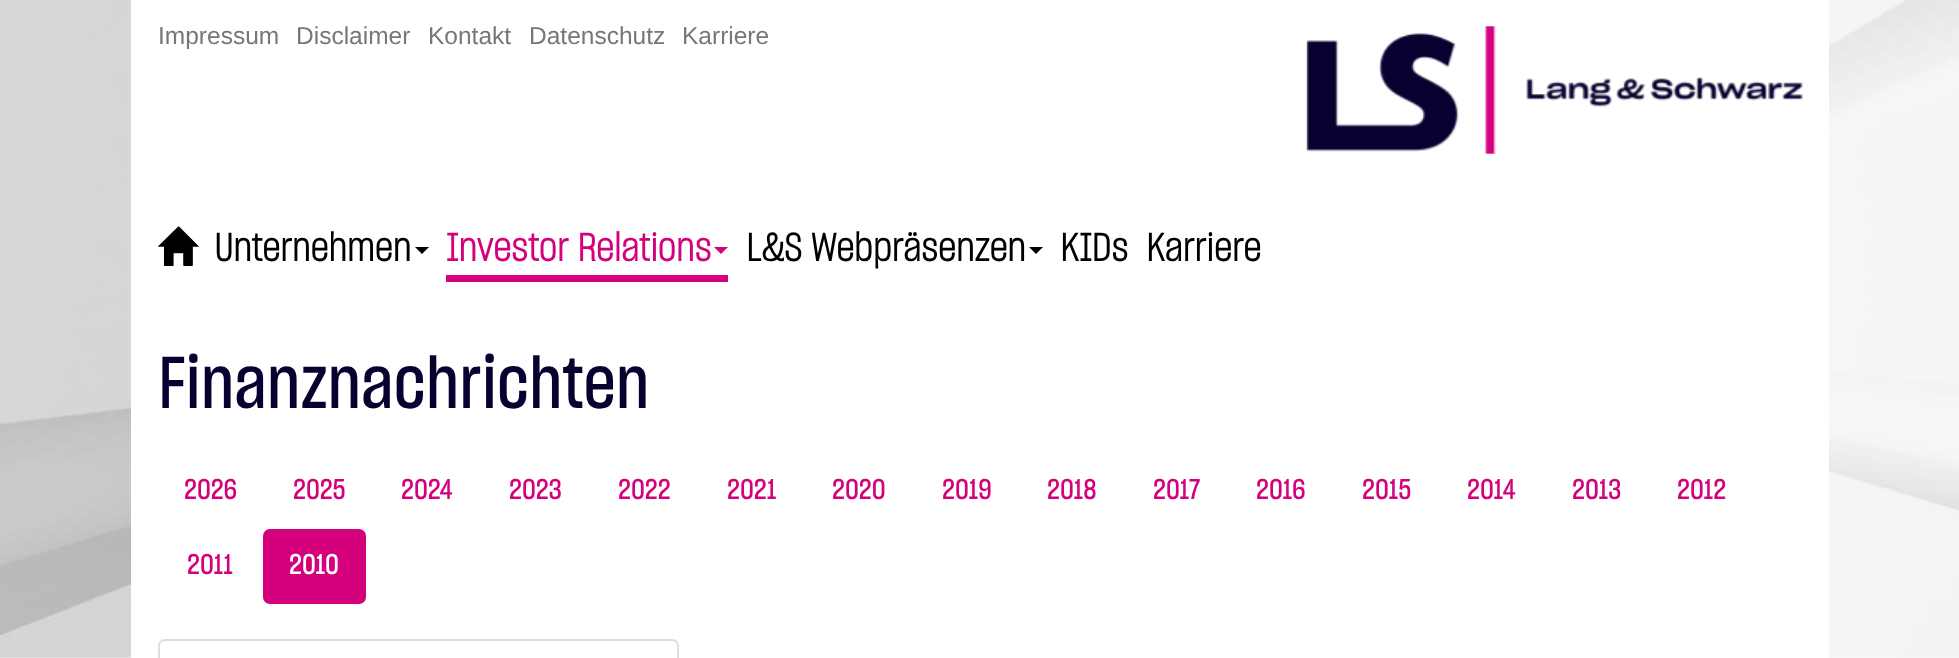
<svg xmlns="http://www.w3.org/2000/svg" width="1959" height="658">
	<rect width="100%" height="100%" fill="#FFFFFF" />
	<image x="0" y="0" width="1959" height="658" href="assets/img1.png" />
	<rect x="131" y="0" width="1698" height="308" fill="#FFFFFF" />
	<g font-family="Liberation Sans" font-size="24.5" fill="#777777">
		<text x="158" y="44">Impressum</text>
		<text x="296" y="44">Disclaimer</text>
		<text x="428" y="44">Kontakt</text>
		<text x="529" y="44">Datenschutz</text>
		<text x="682" y="44">Karriere</text>
	</g>
	<image x="1306" y="26" width="497" height="128" href="assets/img2.png" />
	<image x="158" y="226" width="41" height="40" href="assets/img3.png" />
	<text x="214" y="261" font-family="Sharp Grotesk" font-size="38.5" font-weight="700" fill="#000000">Unternehmen</text>
	<path d="M415 247H429L422 254Z" fill="#000000" />
	<rect x="446" y="275" width="282" height="7" fill="#D4007C" />
	<text x="446" y="261" font-family="Sharp Grotesk" font-size="38.5" font-weight="700" fill="#D4007C">Investor Relations</text>
	<path d="M714 247H728L721 254Z" fill="#D4007C" />
	<text x="746" y="261" font-family="Sharp Grotesk" font-size="38.5" font-weight="700" fill="#000000">L&amp;S Webpräsenzen</text>
	<path d="M1029 247H1043L1036 254Z" fill="#000000" />
	<g font-family="Sharp Grotesk" font-size="38.5" font-weight="700" fill="#000000">
		<text x="1060" y="261">KIDs</text>
		<text x="1146" y="261">Karriere</text>
	</g>
	<rect x="131" y="308" width="1698" height="350" fill="#FFFFFF" />
	<text x="158" y="408" font-family="Sharp Grotesk" font-size="71.75" font-weight="500" fill="#0A0030">Finanznachrichten</text>
	<g font-family="Sharp Grotesk" font-size="28" font-weight="500" fill="#D4007C">
		<text x="184" y="499">2026</text>
		<text x="293" y="499">2025</text>
		<text x="401" y="499">2024</text>
		<text x="509" y="499">2023</text>
		<text x="618" y="499">2022</text>
		<text x="727" y="499">2021</text>
		<text x="832" y="499">2020</text>
		<text x="942" y="499">2019</text>
		<text x="1047" y="499">2018</text>
		<text x="1153" y="499">2017</text>
		<text x="1256" y="499">2016</text>
		<text x="1362" y="499">2015</text>
		<text x="1467" y="499">2014</text>
		<text x="1572" y="499">2013</text>
		<text x="1677" y="499">2012</text>
		<text x="187" y="574">2011</text>
	</g>
	<rect x="263" y="529" width="103" height="75" rx="7" fill="#D4007C" />
	<text x="289" y="574" font-family="Sharp Grotesk" font-size="28" font-weight="500" fill="#FFFFFF">2010</text>
	<path d="M165 640H672C675.5 640 678 642.5 678 646V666H159V646C159 642.5 161.5 640 165 640Z" fill="none" stroke="#DDDDDD" stroke-width="2" />
</svg>
